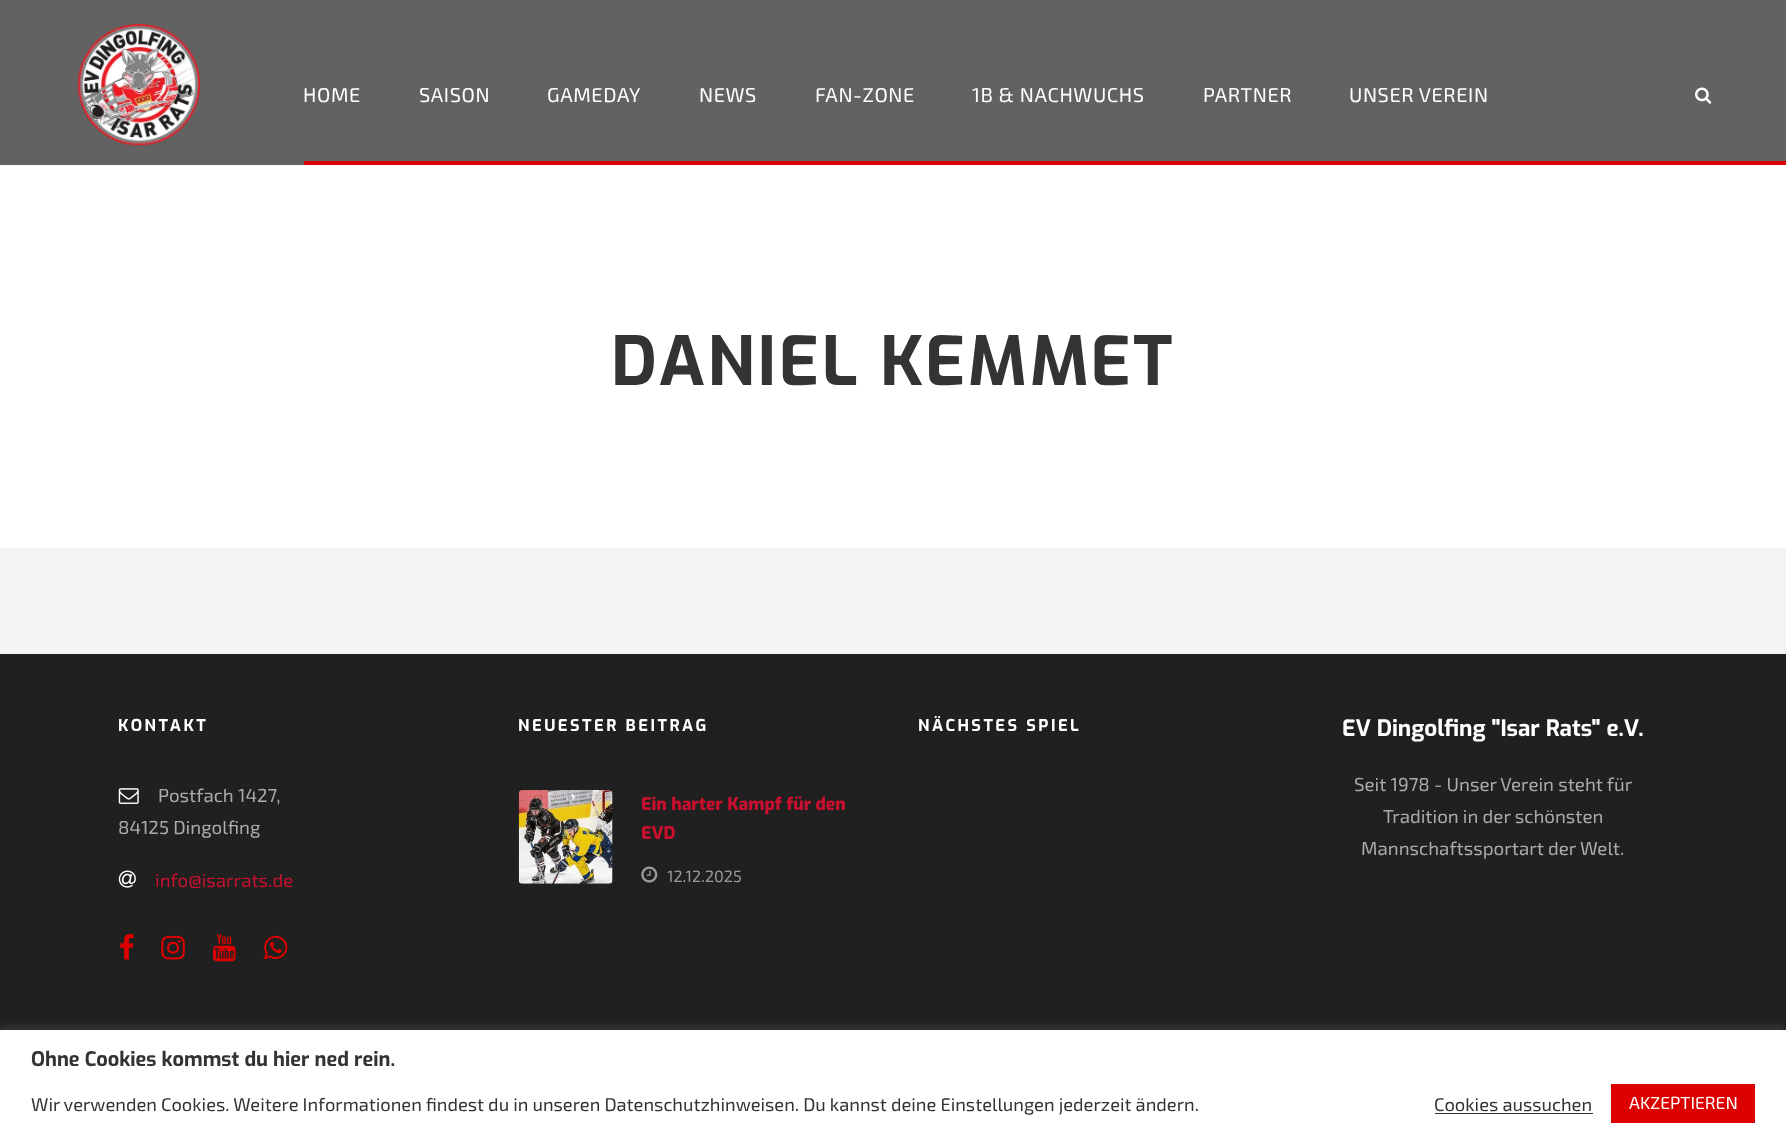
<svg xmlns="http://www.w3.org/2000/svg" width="1786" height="1146">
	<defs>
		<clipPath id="clip1"><rect x="69" y="716" width="1650" height="275" /></clipPath>
	</defs>
	<rect width="100%" height="100%" fill="#FFFFFF" />
	<rect x="0" y="0" width="1786" height="165" fill="#626262" />
	<image x="77" y="24" width="123" height="122" href="assets/img1.png" />
	<g font-family="'Exo 2'" font-size="20" letter-spacing="0.6" fill="#FFFFFF">
		<text x="303" y="102">HOME</text>
		<text x="419" y="102">SAISON</text>
		<text x="547" y="102">GAMEDAY</text>
		<text x="699" y="102">NEWS</text>
		<text x="815" y="102">FAN-ZONE</text>
		<text x="972" y="102">1B &amp; NACHWUCHS</text>
		<text x="1203" y="102">PARTNER</text>
		<text x="1349" y="102">UNSER VEREIN</text>
	</g>
	<image x="1695" y="87" width="17" height="17" href="assets/img2.png" />
	<rect x="304" y="161" width="1482" height="4" fill="#DD0000" />
	<text x="611" y="385" font-family="Exo" font-size="67.5" font-weight="700" letter-spacing="2.5" fill="#333333">DANIEL KEMMET</text>
	<rect x="0" y="548" width="1786" height="106" fill="#F4F4F4" />
	<rect x="0" y="654" width="1786" height="375" fill="#202020" />
	<text x="118" y="731" font-family="Exo" font-size="16.25" font-weight="700" letter-spacing="2.5" fill="#FFFFFF">KONTAKT</text>
	<image x="118" y="788" width="21" height="16" href="assets/img3.png" />
	<g font-family="'Exo 2'" font-size="18.75" fill="#ABABAB">
		<text x="158" y="802">Postfach 1427,</text>
		<text x="118" y="834">84125 Dingolfing</text>
	</g>
	<image x="118" y="870" width="18" height="18" href="assets/img4.png" />
	<text x="155" y="887" font-family="'Exo 2'" font-size="18.75" fill="#C8102E">info@isarrats.de</text>
	<image x="120" y="933" width="14" height="27" href="assets/img5.png" />
	<image x="161" y="935" width="24" height="25" href="assets/img6.png" />
	<image x="212" y="933" width="24" height="29" href="assets/img7.png" />
	<image x="263" y="935" width="25" height="25" href="assets/img8.png" />
	<text x="518" y="731" font-family="Exo" font-size="16.25" font-weight="700" letter-spacing="2.5" fill="#FFFFFF">NEUESTER BEITRAG</text>
	<image x="518" y="790" width="95" height="94" href="assets/img9.png" />
	<g font-family="Exo" font-size="17.5" font-weight="800" fill="#C8102E">
		<text x="641" y="810">Ein harter Kampf für den</text>
		<text x="641" y="839">EVD</text>
	</g>
	<image x="641" y="866" width="17" height="17" href="assets/img10.png" />
	<text x="667" y="882" font-family="'Exo 2'" font-size="16.25" fill="#9C9C9C">12.12.2025</text>
	<g clip-path="url(#clip1)">
		<text x="918" y="731" font-family="Exo" font-size="16.25" font-weight="700" letter-spacing="2.5" fill="#FFFFFF">NÄCHSTES SPIEL</text>
	</g>
	<text x="1342" y="736" font-family="Exo" font-size="22.5" font-weight="700" fill="#FFFFFF">EV Dingolfing "Isar Rats" e.V.</text>
	<g font-family="'Exo 2'" font-size="18.75" fill="#ABABAB">
		<text x="1354" y="791">Seit 1978 - Unser Verein steht für</text>
		<text x="1383" y="823">Tradition in der schönsten</text>
		<text x="1361" y="855">Mannschaftssportart der Welt.</text>
	</g>
	<rect x="0" y="1029" width="1786" height="1" fill="#181818" />
	<rect x="0" y="1029" width="1786" height="116" fill="#ACABAB" fill-opacity="0.3" filter="blur(6px)" />
	<rect x="0" y="1030" width="1786" height="116" fill="#FFFFFF" />
	<text x="31" y="1066" font-family="Exo" font-size="20" font-weight="700" fill="#333333">Ohne Cookies kommst du hier ned rein.</text>
	<g font-family="'Exo 2'" font-size="18.33" fill="#333333">
		<text x="31" y="1111">Wir verwenden Cookies. Weitere Informationen findest du in unseren Datenschutzhinweisen. Du kannst deine Einstellungen jederzeit ändern.</text>
		<text x="1434" y="1111">Cookies aussuchen</text>
	</g>
	<rect x="1435" y="1113" width="158" height="1" fill="#333333" />
	<rect x="1611" y="1084" width="144" height="39" fill="#DD0000" />
	<text x="1629" y="1109" font-family="'Exo 2'" font-size="17.5" fill="#FFFFFF">AKZEPTIEREN</text>
</svg>
